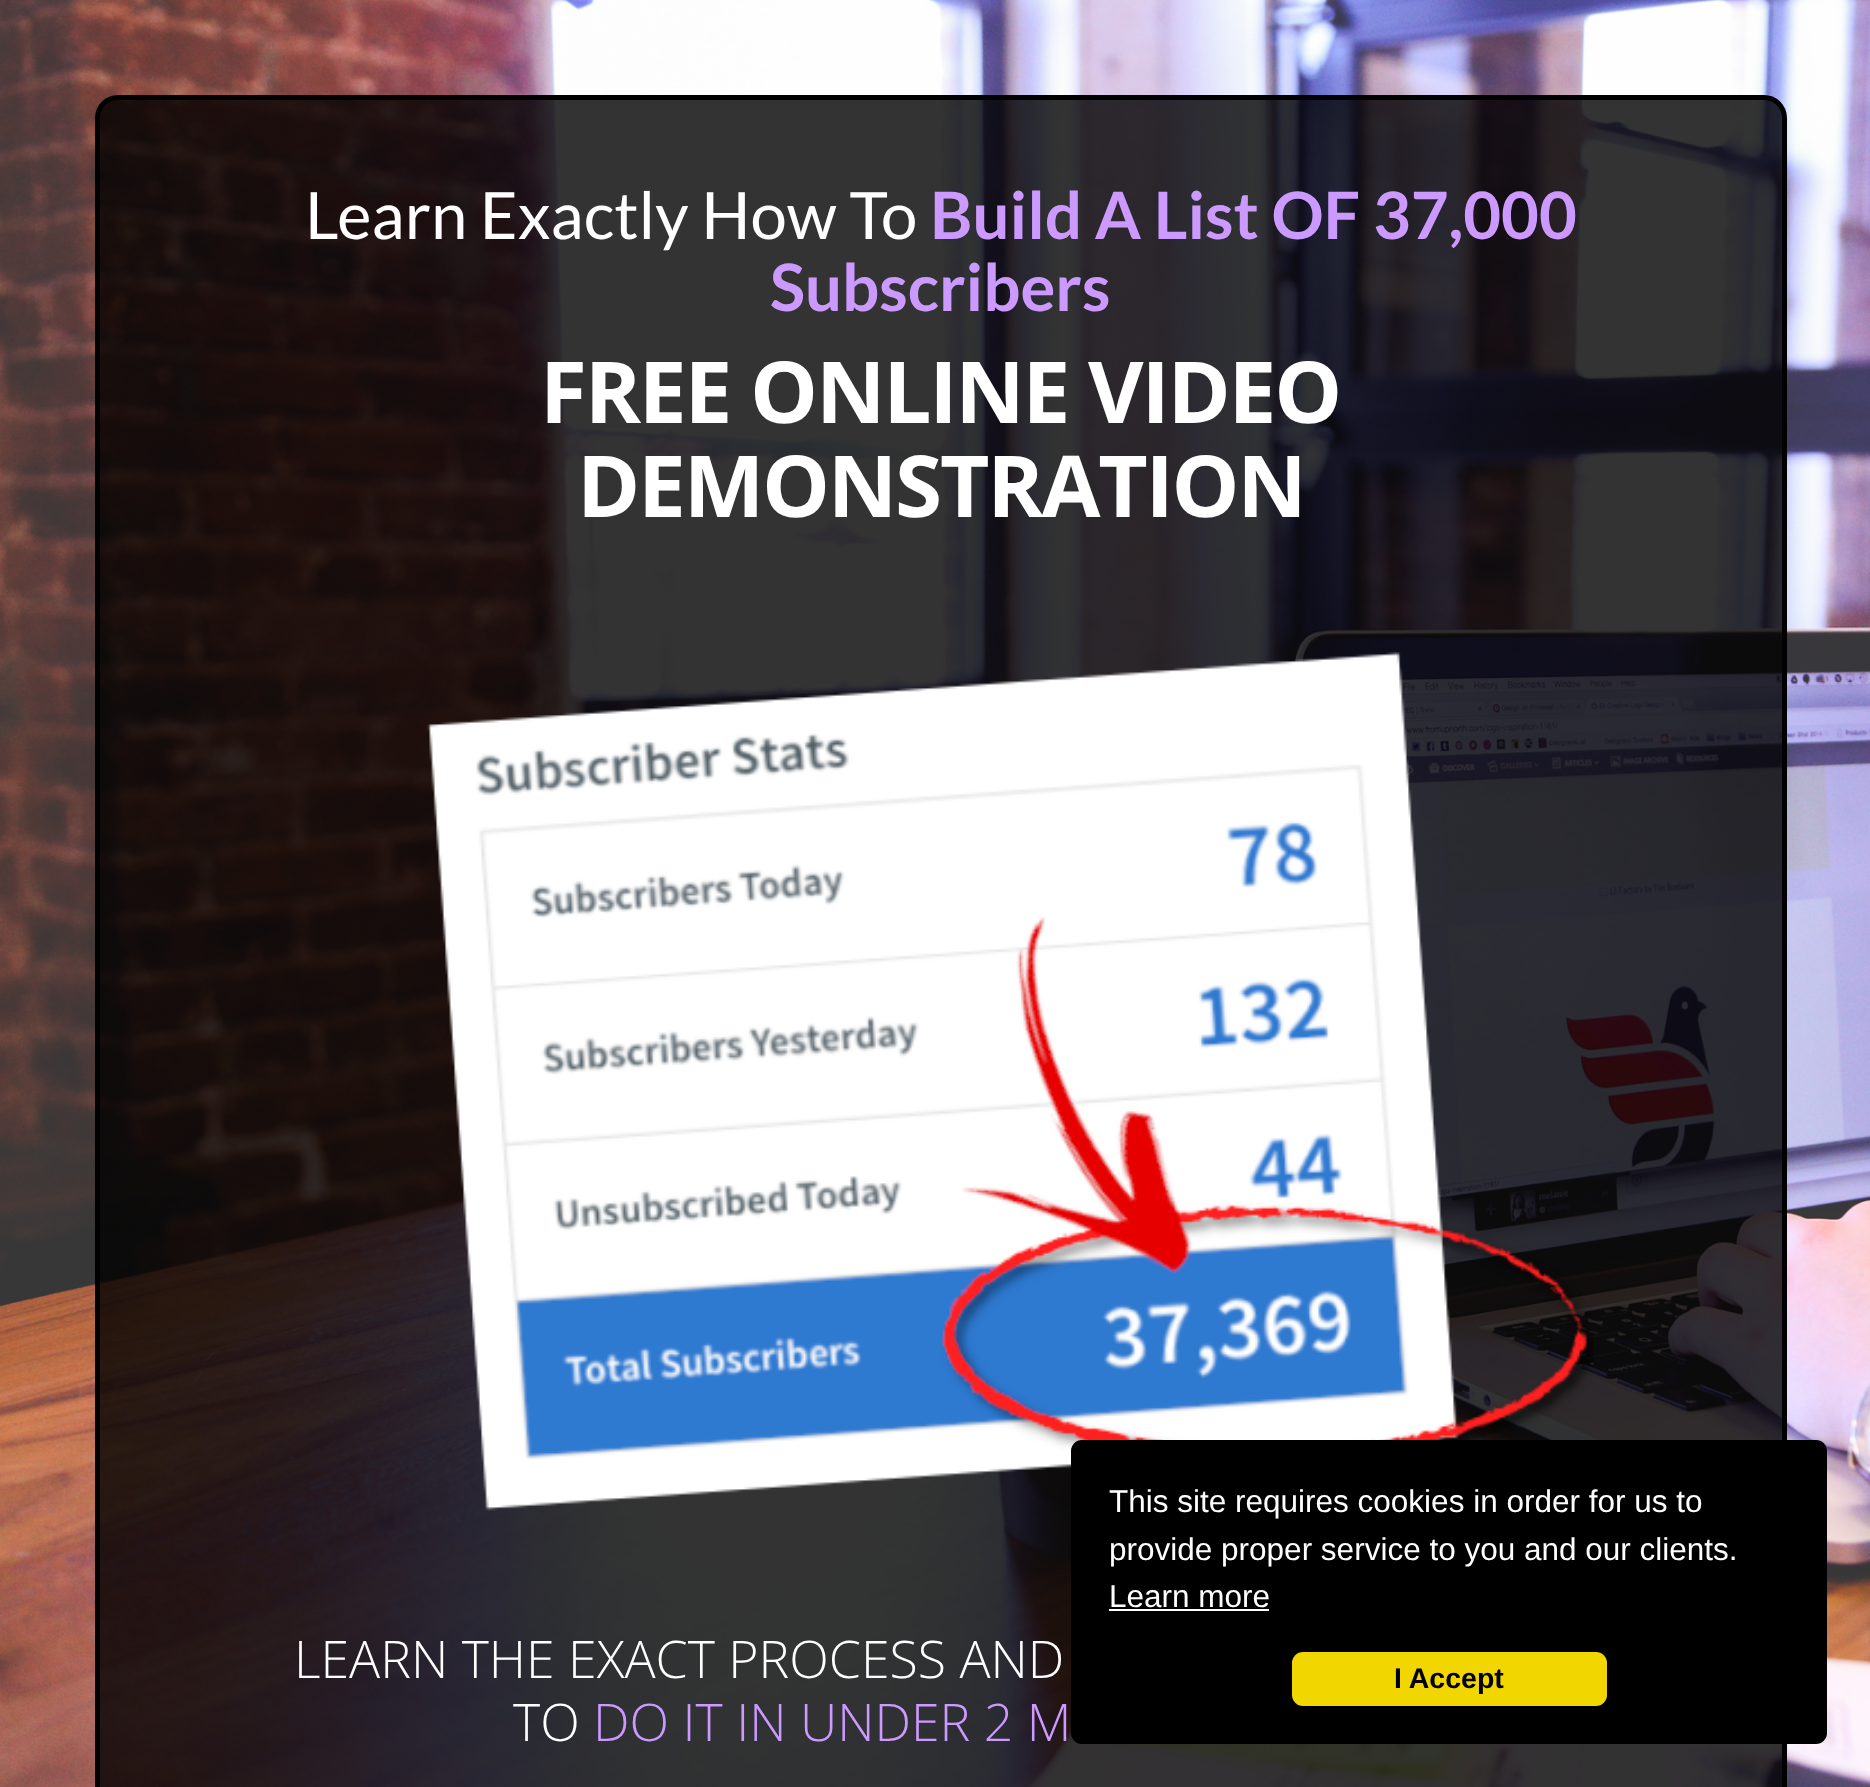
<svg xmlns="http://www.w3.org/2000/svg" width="1870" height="1787">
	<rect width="100%" height="100%" fill="#FFFFFF" />
	<image x="0" y="0" width="1870" height="1787" href="assets/img1.png" />
	<rect x="97.5" y="97.5" width="1687" height="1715" rx="20.5" fill="#000000" fill-opacity="0.8" stroke="#000000" stroke-width="5" />
	<text x="305" y="239" font-family="Lato" font-size="65.25" fill="#FFFFFF">Learn Exactly How To</text>
	<g font-family="Lato" font-size="65.25" font-weight="700" fill="#CC99FF">
		<text x="930" y="239">Build A List OF 37,000</text>
		<text x="770" y="311">Subscribers</text>
	</g>
	<g font-family="Open Sans" font-size="85.5" font-weight="700" letter-spacing="-2.25" fill="#FFFFFF">
		<text x="540" y="423">FREE ONLINE VIDEO</text>
		<text x="577" y="517">DEMONSTRATION</text>
	</g>
	<image x="427" y="652" width="1166" height="859" href="assets/img2.png" />
	<g font-family="Open Sans" font-size="51.75" font-weight="300" fill="#FFFFFF">
		<text x="294" y="1678">LEARN THE EXACT PROCESS AND</text>
		<text x="513" y="1741">TO</text>
	</g>
	<text x="593" y="1741" font-family="Open Sans" font-size="51.75" font-weight="300" fill="#CC99FF">DO IT IN UNDER 2 M</text>
	<rect x="1071" y="1440" width="756" height="304" rx="11" fill="#000000" />
	<g font-family="Liberation Sans" font-size="31.5" fill="#FFFFFF">
		<text x="1109" y="1512">This site requires cookies in order for us to</text>
		<text x="1109" y="1560">provide proper service to you and our clients.</text>
		<text x="1109" y="1607">Learn more</text>
	</g>
	<rect x="1109" y="1609" width="160" height="2" fill="#FFFFFF" />
	<rect x="1292" y="1652" width="315" height="54" rx="11" fill="#F1D600" />
	<text x="1394" y="1688" font-family="Liberation Sans" font-size="28.5" font-weight="700" fill="#000000">I Accept</text>
</svg>
